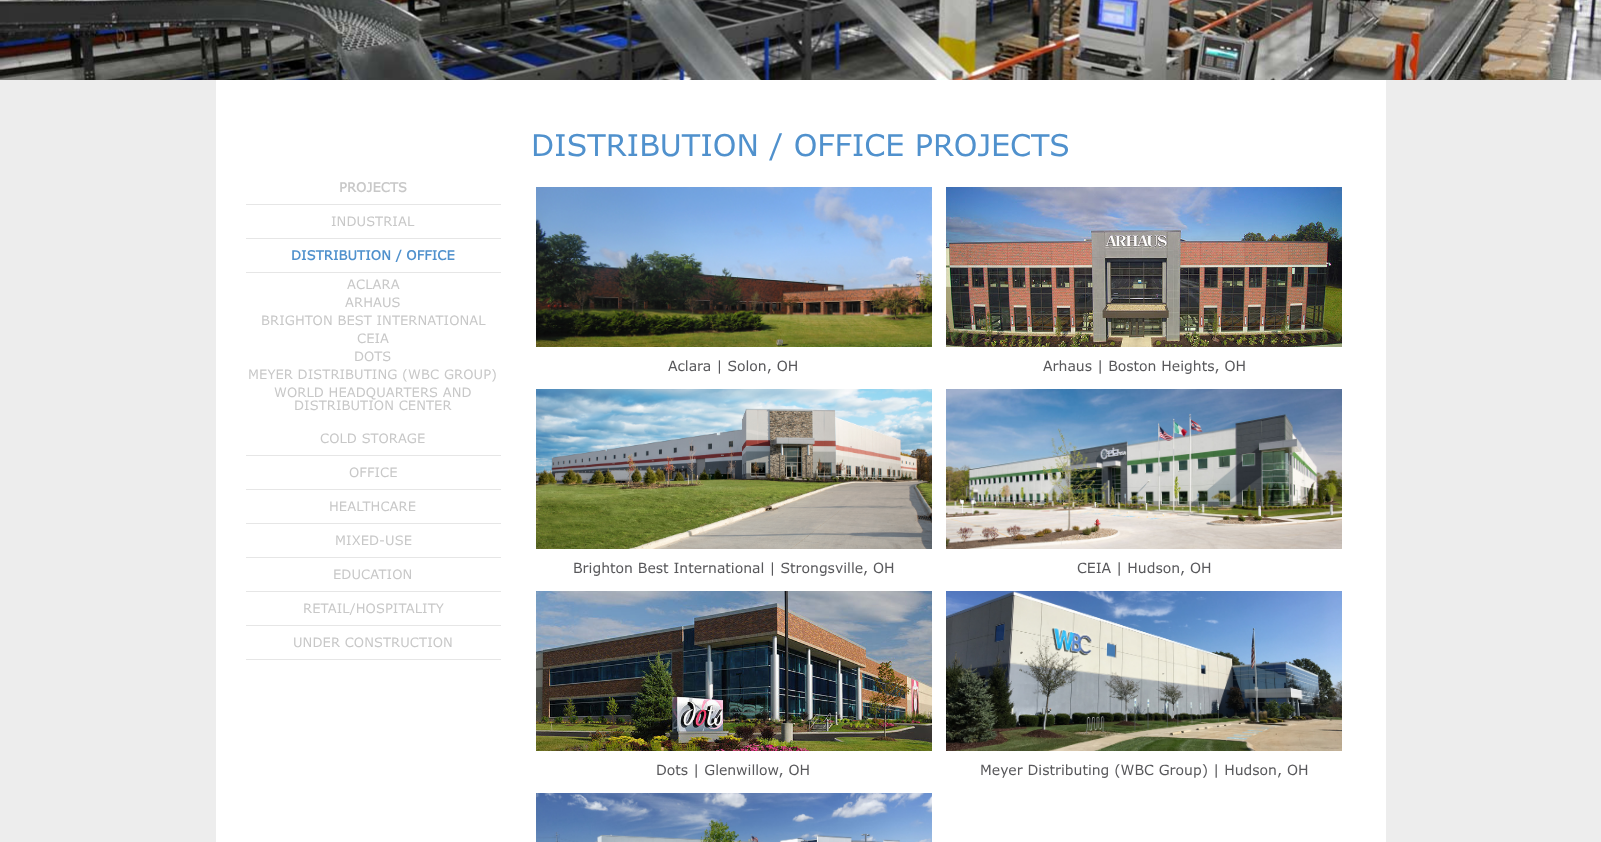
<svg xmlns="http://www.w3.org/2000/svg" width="1601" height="842">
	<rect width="100%" height="100%" fill="#EDEDED" />
	<image x="0" y="0" width="1601" height="80" href="assets/img1.png" />
	<rect x="216" y="80" width="1170" height="762" fill="#FFFFFF" />
	<rect x="246" y="204" width="255" height="1" fill="#E6E6E6" />
	<text x="339" y="192" font-family="Verdana" font-size="13" font-weight="700" letter-spacing="0.1" fill="#C8C8C8">PROJECTS</text>
	<rect x="246" y="238" width="255" height="1" fill="#E6E6E6" />
	<text x="331" y="226" font-family="Verdana" font-size="13" letter-spacing="0.1" fill="#C8C8C8">INDUSTRIAL</text>
	<rect x="246" y="272" width="255" height="1" fill="#E6E6E6" />
	<text x="291" y="260" font-family="Verdana" font-size="13" font-weight="700" letter-spacing="0.1" fill="#5091CD">DISTRIBUTION / OFFICE</text>
	<g font-family="Verdana" font-size="13" letter-spacing="0.1" fill="#C8C8C8">
		<text x="347" y="289">ACLARA</text>
		<text x="345" y="307">ARHAUS</text>
		<text x="261" y="325">BRIGHTON BEST INTERNATIONAL</text>
		<text x="357" y="343">CEIA</text>
		<text x="354" y="361">DOTS</text>
		<text x="248" y="379">MEYER DISTRIBUTING (WBC GROUP)</text>
		<text x="274" y="397">WORLD HEADQUARTERS AND</text>
		<text x="294" y="410">DISTRIBUTION CENTER</text>
	</g>
	<rect x="246" y="455" width="255" height="1" fill="#E6E6E6" />
	<text x="320" y="443" font-family="Verdana" font-size="13" letter-spacing="0.1" fill="#C8C8C8">COLD STORAGE</text>
	<rect x="246" y="489" width="255" height="1" fill="#E6E6E6" />
	<text x="349" y="477" font-family="Verdana" font-size="13" letter-spacing="0.1" fill="#C8C8C8">OFFICE</text>
	<rect x="246" y="523" width="255" height="1" fill="#E6E6E6" />
	<text x="329" y="511" font-family="Verdana" font-size="13" letter-spacing="0.1" fill="#C8C8C8">HEALTHCARE</text>
	<rect x="246" y="557" width="255" height="1" fill="#E6E6E6" />
	<text x="335" y="545" font-family="Verdana" font-size="13" letter-spacing="0.1" fill="#C8C8C8">MIXED-USE</text>
	<rect x="246" y="591" width="255" height="1" fill="#E6E6E6" />
	<text x="333" y="579" font-family="Verdana" font-size="13" letter-spacing="0.1" fill="#C8C8C8">EDUCATION</text>
	<rect x="246" y="625" width="255" height="1" fill="#E6E6E6" />
	<text x="303" y="613" font-family="Verdana" font-size="13" letter-spacing="0.1" fill="#C8C8C8">RETAIL/HOSPITALITY</text>
	<rect x="246" y="659" width="255" height="1" fill="#E6E6E6" />
	<text x="293" y="647" font-family="Verdana" font-size="13" letter-spacing="0.1" fill="#C8C8C8">UNDER CONSTRUCTION</text>
	<text x="531" y="156" font-family="Verdana" font-size="30" fill="#5091CD">DISTRIBUTION / OFFICE PROJECTS</text>
	<image x="536" y="187" width="396" height="160" href="assets/img2.png" />
	<text x="668" y="371" font-family="Verdana" font-size="14" fill="#58585B">Aclara | Solon, OH</text>
	<image x="946" y="187" width="396" height="160" href="assets/img3.png" />
	<text x="1043" y="371" font-family="Verdana" font-size="14" fill="#58585B">Arhaus | Boston Heights, OH</text>
	<image x="536" y="389" width="396" height="160" href="assets/img4.png" />
	<text x="573" y="573" font-family="Verdana" font-size="14" fill="#58585B">Brighton Best International | Strongsville, OH</text>
	<image x="946" y="389" width="396" height="160" href="assets/img5.png" />
	<text x="1077" y="573" font-family="Verdana" font-size="14" fill="#58585B">CEIA | Hudson, OH</text>
	<image x="536" y="591" width="396" height="160" href="assets/img6.png" />
	<text x="656" y="775" font-family="Verdana" font-size="14" fill="#58585B">Dots | Glenwillow, OH</text>
	<image x="946" y="591" width="396" height="160" href="assets/img7.png" />
	<text x="980" y="775" font-family="Verdana" font-size="14" fill="#58585B">Meyer Distributing (WBC Group) | Hudson, OH</text>
	<image x="536" y="793" width="396" height="49" href="assets/img8.png" />
</svg>
